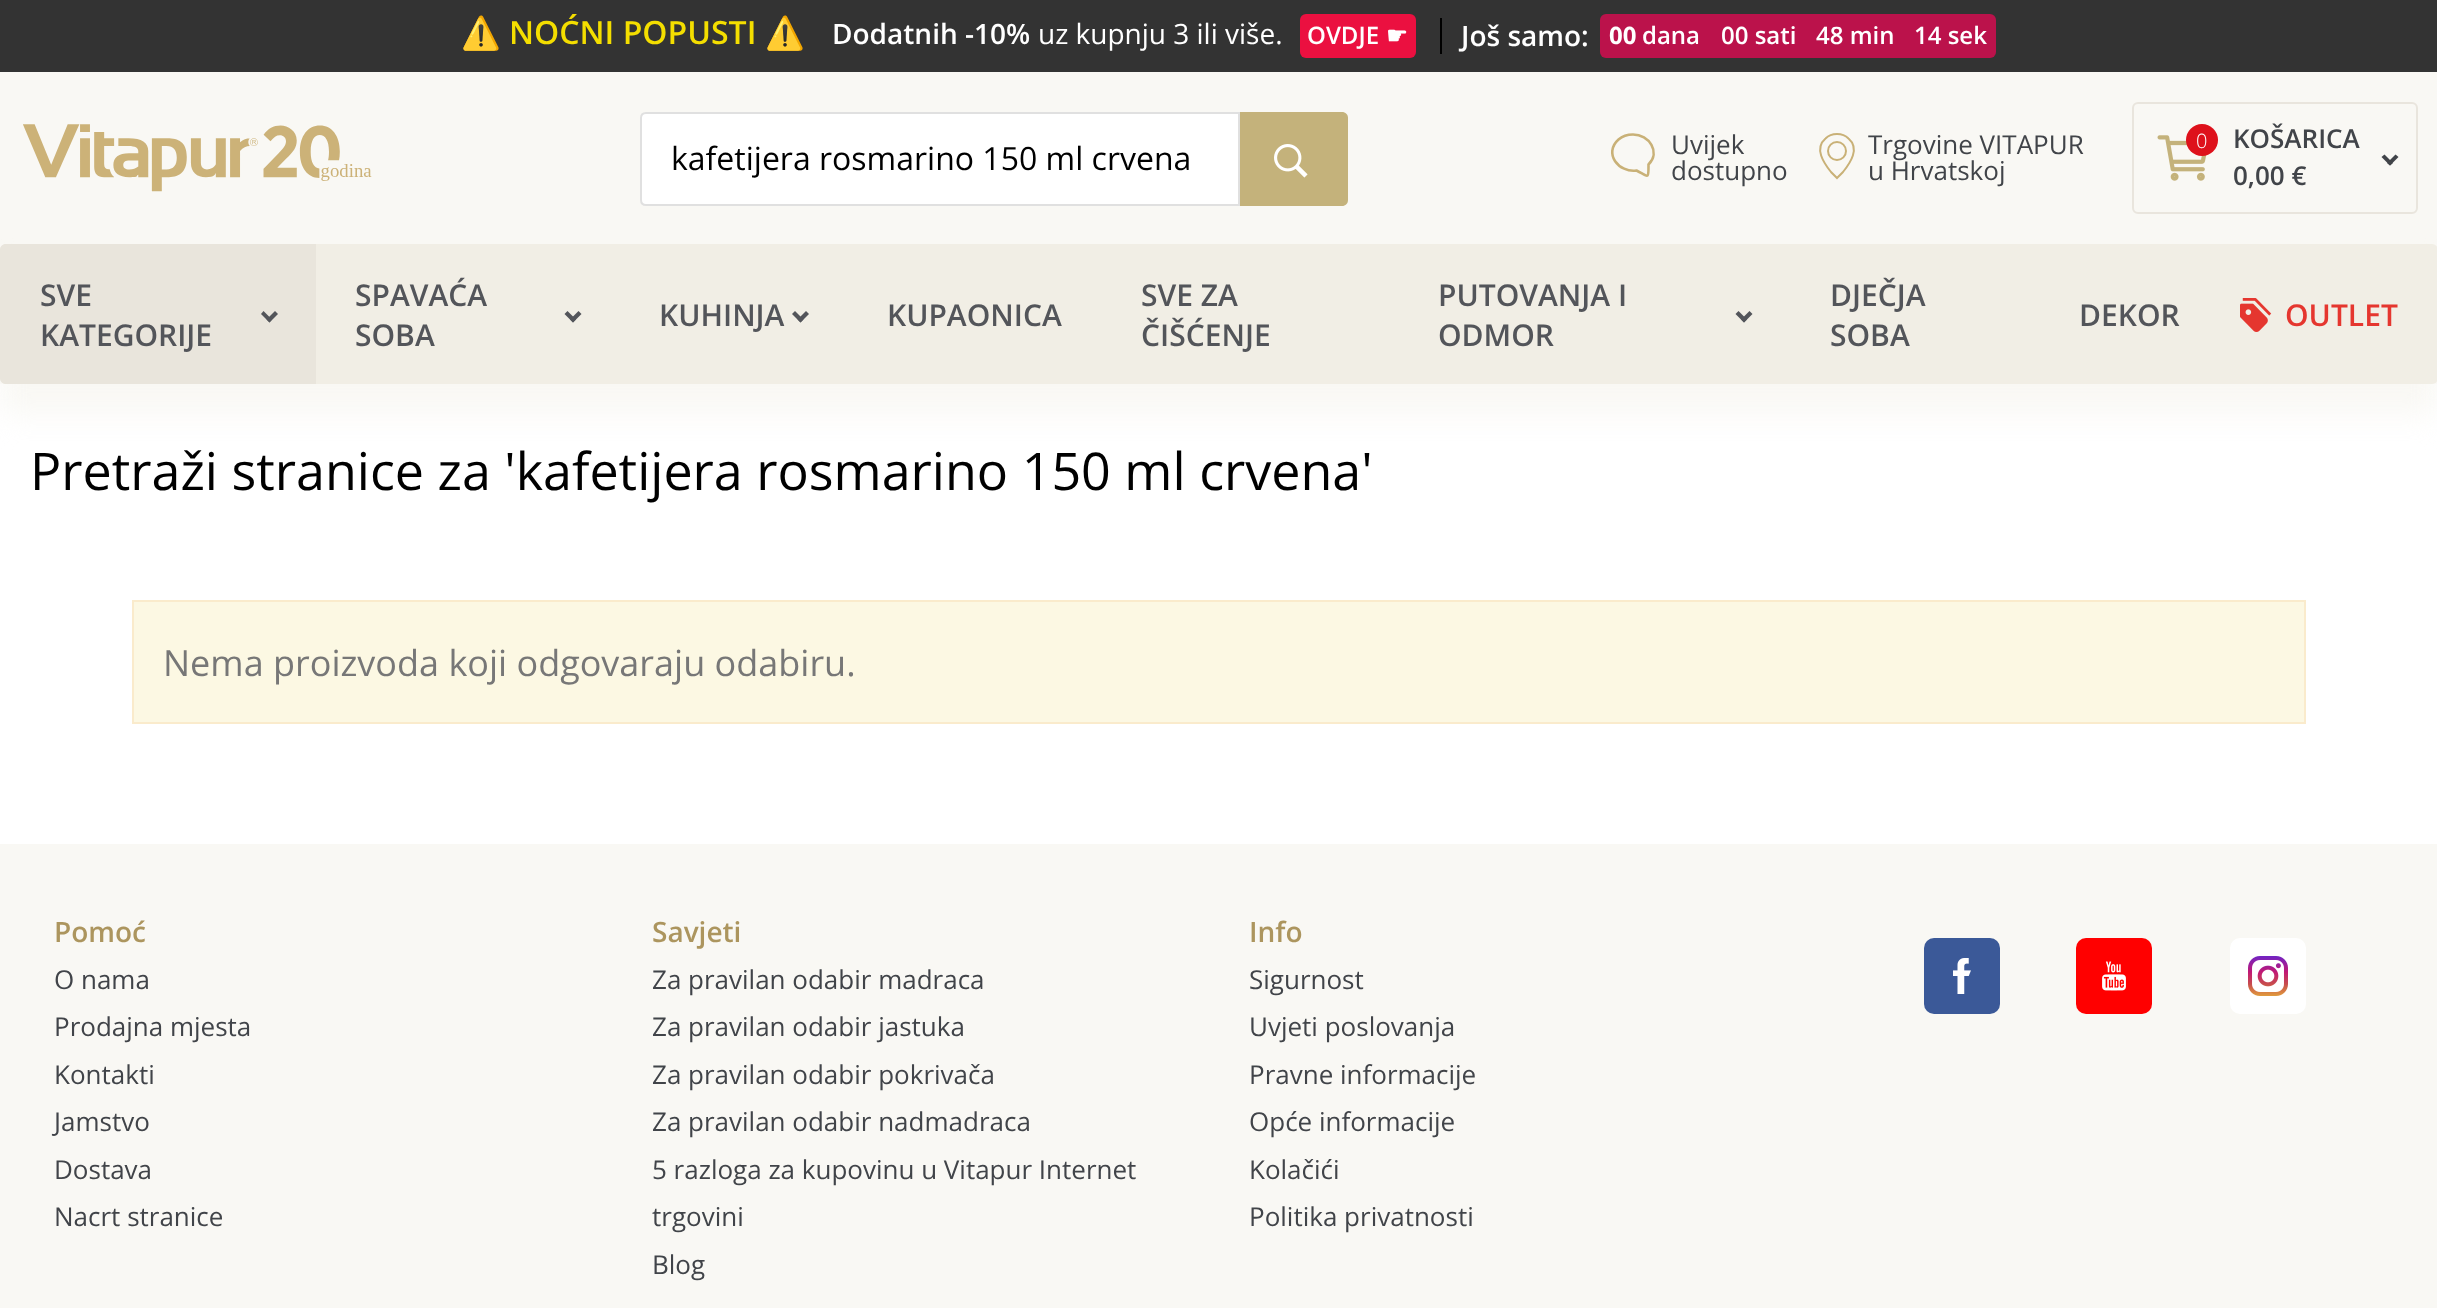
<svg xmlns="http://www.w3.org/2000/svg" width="2437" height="1308">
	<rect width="100%" height="100%" fill="#FFFFFF" />
	<rect x="0" y="0" width="2437" height="72" fill="#333333" />
	<text x="461" y="44" font-family="Noto Color Emoji" font-size="32" font-weight="700" fill="#F4DE00">⚠️</text>
	<text x="509" y="44" font-family="Open Sans" font-size="32" font-weight="600" fill="#F4DE00">NOĆNI POPUSTI</text>
	<text x="765" y="44" font-family="Noto Color Emoji" font-size="32" font-weight="700" fill="#F4DE00">⚠️</text>
	<text x="832" y="44" font-family="Open Sans" font-size="28" font-weight="600" fill="#FFFFFF">Dodatnih -10%</text>
	<text x="1038" y="44" font-family="Open Sans" font-size="28" fill="#FFFFFF">uz kupnju 3 ili više.</text>
	<rect x="1300" y="14" width="116" height="44" rx="6" fill="#EB1040" />
	<text x="1307" y="44" font-family="Open Sans" font-size="24" font-weight="600" fill="#FFFFFF">OVDJE</text>
	<text x="1386" y="44" font-family="DejaVu Sans" font-size="24" font-weight="700" fill="#FFFFFF">☛</text>
	<rect x="1440" y="18" width="2" height="36" fill="#000000" />
	<text x="1461" y="46" font-family="Open Sans" font-size="28" font-weight="600" fill="#FFFFFF">Još samo:</text>
	<rect x="1600" y="14" width="396" height="44" rx="6" fill="#BB124B" />
	<text x="1609" y="44" font-family="Open Sans" font-size="24" font-weight="700" fill="#FFFFFF">00</text>
	<g font-family="Open Sans" font-size="24" font-weight="600" fill="#FFFFFF">
		<text x="1642" y="44">dana</text>
		<text x="1721" y="44">00 sati</text>
		<text x="1816" y="44">48 min</text>
		<text x="1914" y="44">14 sek</text>
	</g>
	<rect x="0" y="72" width="2437" height="172" fill="#F9F8F4" />
	<image x="23" y="124" width="349" height="68" href="assets/img1.png" />
	<path d="M646 113H1239V205H646C643 205 641 203 641 200V118C641 115 643 113 646 113Z" fill="#FFFFFF" stroke="#E0E0E0" stroke-width="2" />
	<text x="671" y="170" font-family="Open Sans" font-size="32" fill="#000000">kafetijera rosmarino 150 ml crvena</text>
	<path d="M1240 112H1342C1345.5 112 1348 114.5 1348 118V200C1348 203.5 1345.5 206 1342 206H1240Z" fill="#C4B27B" />
	<image x="1274" y="144" width="34" height="34" href="assets/img2.png" />
	<path d="M1633 134.5C1627.5 134.5 1622.5 136 1618.5 139.5C1603 153.5 1619 173 1636.5 170.5C1649 177 1648.5 179.5 1648.5 164.5C1661 152 1649 134.5 1633 134.5Z" fill="none" stroke="#C9B177" stroke-width="2.6" />
	<g font-family="Open Sans" font-size="26" fill="#414449">
		<text x="1671" y="154">Uvijek</text>
		<text x="1671" y="180">dostupno</text>
	</g>
	<path d="M1837 178L1843 172C1850.5 162.5 1860 148.5 1848.5 138.5C1845.5 135.5 1841 134 1837 134C1833 134 1828.5 135.5 1825.5 138.5C1814 148.5 1823.5 162.5 1831 172Z" fill="none" stroke="#C9B177" stroke-width="2" />
	<circle cx="1837" cy="151" r="9" fill="none" stroke="#C9B177" stroke-width="2" />
	<g font-family="Open Sans" font-size="26" fill="#414449">
		<text x="1868" y="154">Trgovine VITAPUR</text>
		<text x="1868" y="180">u Hrvatskoj</text>
	</g>
	<rect x="2133" y="103" width="284" height="110" rx="5" fill="none" stroke="#E9E5DD" stroke-width="2" />
	<image x="2157" y="135" width="50" height="46" href="assets/img3.png" />
	<circle cx="2202" cy="140" r="16" fill="#DE111B" />
	<text x="2196" y="148" font-family="Open Sans" font-size="20" font-weight="300" fill="#FFFFFF">0</text>
	<text x="2233" y="148" font-family="Open Sans" font-size="26" font-weight="600" fill="#414449">KOŠARICA</text>
	<path d="M2395.5 154.5L2398.5 157L2390 165.5L2387 163Z" fill="#414449" />
	<path d="M2384.5 154.5L2393 163L2390 165.5L2381.5 157Z" fill="#414449" />
	<text x="2233" y="185" font-family="Open Sans" font-size="26" font-weight="600" fill="#414449">0,00 €</text>
	<rect x="0" y="274" width="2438" height="140" fill="#F9F8F4" filter="blur(15px)" />
	<rect x="0" y="244" width="2437" height="140" fill="#F9F8F4" />
	<rect x="0" y="244" width="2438" height="140" rx="6" fill="#F1EEE5" />
	<path d="M6 244H316V384H6C2.5 384 0 381.5 0 378V250C0 246.5 2.5 244 6 244Z" fill="#E9E5DC" />
	<text x="40" y="306" font-family="Open Sans" font-size="30" font-weight="600" fill="#53555A">SVE</text>
	<path d="M275 311L278 314L269.5 322.5L266.5 319.5Z" fill="#53555A" />
	<path d="M263.5 311L272 319.5L269.5 322.5L261 314Z" fill="#53555A" />
	<g font-family="Open Sans" font-size="30" font-weight="600" fill="#53555A">
		<text x="40" y="346">KATEGORIJE</text>
		<text x="355" y="306">SPAVAĆA</text>
	</g>
	<path d="M578.5 311L581.5 314L573 322.5L570 319.5Z" fill="#53555A" />
	<path d="M567.5 311L576 319.5L573 322.5L564.5 314Z" fill="#53555A" />
	<g font-family="Open Sans" font-size="30" font-weight="600" fill="#53555A">
		<text x="355" y="346">SOBA</text>
		<text x="659" y="326">KUHINJA</text>
	</g>
	<path d="M806 311L809 314L800.5 322.5L797.5 319.5Z" fill="#53555A" />
	<path d="M795 311L803.5 319.5L800.5 322.5L792 314Z" fill="#53555A" />
	<g font-family="Open Sans" font-size="30" font-weight="600" fill="#53555A">
		<text x="887" y="326">KUPAONICA</text>
		<text x="1141" y="306">SVE ZA</text>
		<text x="1141" y="346">ČIŠĆENJE</text>
		<text x="1438" y="306">PUTOVANJA I</text>
	</g>
	<path d="M1749.5 311L1752.5 314L1744 322.5L1741 319.5Z" fill="#53555A" />
	<path d="M1738.5 311L1747 319.5L1744 322.5L1735.5 314Z" fill="#53555A" />
	<g font-family="Open Sans" font-size="30" font-weight="600" fill="#53555A">
		<text x="1438" y="346">ODMOR</text>
		<text x="1830" y="306">DJEČJA</text>
		<text x="1830" y="346">SOBA</text>
		<text x="2079" y="326">DEKOR</text>
	</g>
	<image x="2240" y="298" width="32" height="34" href="assets/img4.png" />
	<text x="2285" y="326" font-family="Open Sans" font-size="30" font-weight="600" fill="#E5362F">OUTLET</text>
	<text x="30" y="490" font-family="Open Sans" font-size="52" fill="#000000">Pretraži stranice za 'kafetijera rosmarino 150 ml crvena'</text>
	<rect x="133" y="601" width="2172" height="122" fill="#FCF8E3" stroke="#FAEBCC" stroke-width="2" />
	<text x="163" y="676" font-family="Open Sans" font-size="36" fill="#777777">Nema proizvoda koji odgovaraju odabiru.</text>
	<rect x="0" y="844" width="2437" height="464" fill="#F9F8F4" />
	<text x="54" y="942" font-family="Open Sans" font-size="28" font-weight="600" fill="#AC955E">Pomoć</text>
	<g font-family="Open Sans" font-size="26" fill="#414449">
		<text x="54" y="989">O nama</text>
		<text x="54" y="1036">Prodajna mjesta</text>
		<text x="54" y="1084">Kontakti</text>
		<text x="54" y="1131">Jamstvo</text>
		<text x="54" y="1179">Dostava</text>
		<text x="54" y="1226">Nacrt stranice</text>
	</g>
	<text x="652" y="942" font-family="Open Sans" font-size="28" font-weight="600" fill="#AC955E">Savjeti</text>
	<g font-family="Open Sans" font-size="26" fill="#414449">
		<text x="652" y="989">Za pravilan odabir madraca</text>
		<text x="652" y="1036">Za pravilan odabir jastuka</text>
		<text x="652" y="1084">Za pravilan odabir pokrivača</text>
		<text x="652" y="1131">Za pravilan odabir nadmadraca</text>
		<text x="652" y="1179">5 razloga za kupovinu u Vitapur Internet</text>
		<text x="652" y="1226">trgovini</text>
		<text x="652" y="1274">Blog</text>
	</g>
	<text x="1249" y="942" font-family="Open Sans" font-size="28" font-weight="600" fill="#AC955E">Info</text>
	<g font-family="Open Sans" font-size="26" fill="#414449">
		<text x="1249" y="989">Sigurnost</text>
		<text x="1249" y="1036">Uvjeti poslovanja</text>
		<text x="1249" y="1084">Pravne informacije</text>
		<text x="1249" y="1131">Opće informacije</text>
		<text x="1249" y="1179">Kolačići</text>
		<text x="1249" y="1226">Politika privatnosti</text>
	</g>
	<rect x="1924" y="938" width="76" height="76" rx="10" fill="#3B5998" />
	<image x="1953" y="958" width="18" height="36" href="assets/img5.png" />
	<rect x="2076" y="938" width="76" height="76" rx="10" fill="#FF0000" />
	<image x="2102" y="961" width="24" height="30" href="assets/img6.png" />
	<rect x="2230" y="938" width="76" height="76" rx="10" fill="#FFFFFF" />
	<image x="2248" y="956" width="40" height="40" href="assets/img7.png" />
</svg>
